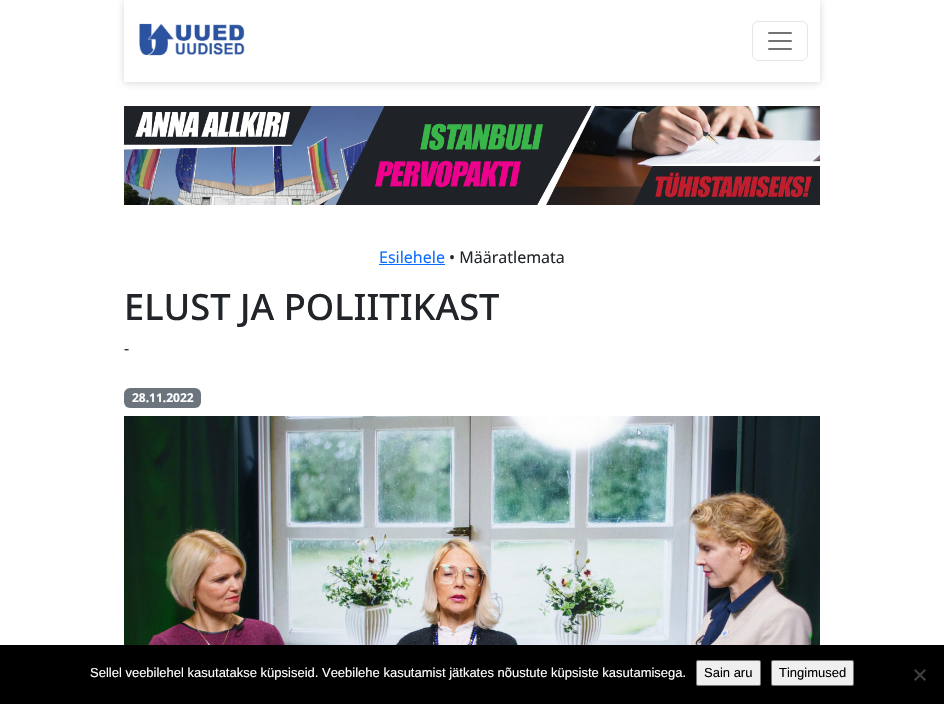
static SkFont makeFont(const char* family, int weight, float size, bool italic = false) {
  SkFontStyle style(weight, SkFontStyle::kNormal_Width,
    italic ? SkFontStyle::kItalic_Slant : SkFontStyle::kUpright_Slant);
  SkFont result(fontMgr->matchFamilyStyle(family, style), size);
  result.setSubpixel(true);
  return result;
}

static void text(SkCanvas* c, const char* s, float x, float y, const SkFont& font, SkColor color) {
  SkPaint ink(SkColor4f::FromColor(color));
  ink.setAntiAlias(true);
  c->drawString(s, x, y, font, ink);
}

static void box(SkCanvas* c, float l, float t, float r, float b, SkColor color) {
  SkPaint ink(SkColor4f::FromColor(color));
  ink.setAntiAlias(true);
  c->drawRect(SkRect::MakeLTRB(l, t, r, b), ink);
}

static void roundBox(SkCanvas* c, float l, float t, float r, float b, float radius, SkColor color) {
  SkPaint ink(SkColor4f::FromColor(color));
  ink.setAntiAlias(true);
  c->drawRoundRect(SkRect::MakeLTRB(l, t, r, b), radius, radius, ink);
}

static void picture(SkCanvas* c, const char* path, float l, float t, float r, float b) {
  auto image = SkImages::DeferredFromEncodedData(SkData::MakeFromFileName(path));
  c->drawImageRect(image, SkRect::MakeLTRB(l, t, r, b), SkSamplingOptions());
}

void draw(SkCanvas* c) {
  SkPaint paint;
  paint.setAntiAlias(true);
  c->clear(0xffffffff);
  c->save();
  c->clipPath(SkPathBuilder(SkPathFillType::kEvenOdd).moveTo(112, 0).lineTo(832, 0).lineTo(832, 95).lineTo(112, 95).close().moveTo(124, 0).lineTo(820, 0).lineTo(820, 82).lineTo(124, 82).close().detach(), true);
  paint.setColor(0x85b0b0b0);
  paint.setMaskFilter(SkMaskFilter::MakeBlur(kNormal_SkBlurStyle, 3.5f));
  c->drawRect(SkRect::MakeLTRB(124, 1, 820, 83), paint);
  paint.setMaskFilter(nullptr);
  c->restore();
  picture(c, "img_01.png", 139, 23, 245, 56);
  paint.setStyle(SkPaint::kStroke_Style);
  paint.setStrokeWidth(1);
  paint.setColor(0xffe6e6e6);
  c->drawRoundRect(SkRect::MakeLTRB(752.5f, 21.5f, 807.5f, 60.5f), 5.5f, 5.5f, paint);
  picture(c, "img_02.png", 768, 32, 792, 50);
  picture(c, "img_03.png", 124, 106, 820, 205);
  SkFont face1 = makeFont("Noto Sans", 400, 16);
  text(c, "Esilehele", 379, 263, face1, 0xff0d6efd);
  box(c, 379, 264, 445, 265, 0xff0d6efd);
  text(c, "• Määratlemata", 449, 263, face1, 0xff212529);
  SkFont face2 = makeFont("Noto Sans", 500, 36.25f);
  text(c, "ELUST JA POLIITIKAST", 124, 320, face2, 0xff212529);
  text(c, "-", 124, 354, face1, 0xff212529);
  roundBox(c, 124, 388, 201, 408, 6, 0xff6c757d);
  SkFont face3 = makeFont("Noto Sans", 700, 12);
  text(c, "28.11.2022", 132, 402, face3, 0xffffffff);
  picture(c, "img_04.png", 124, 416, 820, 645);
  box(c, 0, 645, 944, 704, 0xff000000);
  SkFont face4 = makeFont("Liberation Sans", 400, 13);
  text(c, "Sellel veebilehel kasutatakse küpsiseid. Veebilehe kasutamist jätkates nõustute küpsiste kasutamisega.", 90, 677, face4, 0xffffffff);
  paint.setStyle(SkPaint::kFill_Style);
  paint.setColor(0xffefefef);
  c->drawRoundRect(SkRect::MakeLTRB(696.5f, 660.5f, 760.5f, 685.5f), 1.5f, 1.5f, paint);
  paint.setStyle(SkPaint::kStroke_Style);
  paint.setColor(0xff767676);
  c->drawRoundRect(SkRect::MakeLTRB(696.5f, 660.5f, 760.5f, 685.5f), 1.5f, 1.5f, paint);
  text(c, "Sain aru", 704, 677, face4, 0xff000000);
  paint.setStyle(SkPaint::kFill_Style);
  paint.setColor(0xffefefef);
  c->drawRoundRect(SkRect::MakeLTRB(771.5f, 660.5f, 853.5f, 685.5f), 1.5f, 1.5f, paint);
  paint.setStyle(SkPaint::kStroke_Style);
  paint.setColor(0xff767676);
  c->drawRoundRect(SkRect::MakeLTRB(771.5f, 660.5f, 853.5f, 685.5f), 1.5f, 1.5f, paint);
  text(c, "Tingimused", 779, 677, face4, 0xff000000);
  paint.setStyle(SkPaint::kFill_Style);
  paint.setColor(0xff404040);
  c->drawPath(SkPathBuilder().moveTo(924.5f, 669).lineTo(926, 670.5f).lineTo(915.5f, 681).lineTo(914, 679.5f).close().detach(), paint);
  c->drawPath(SkPathBuilder().moveTo(914, 670.5f).lineTo(915.5f, 669).lineTo(926, 679.5f).lineTo(924.5f, 681).close().detach(), paint);
}
